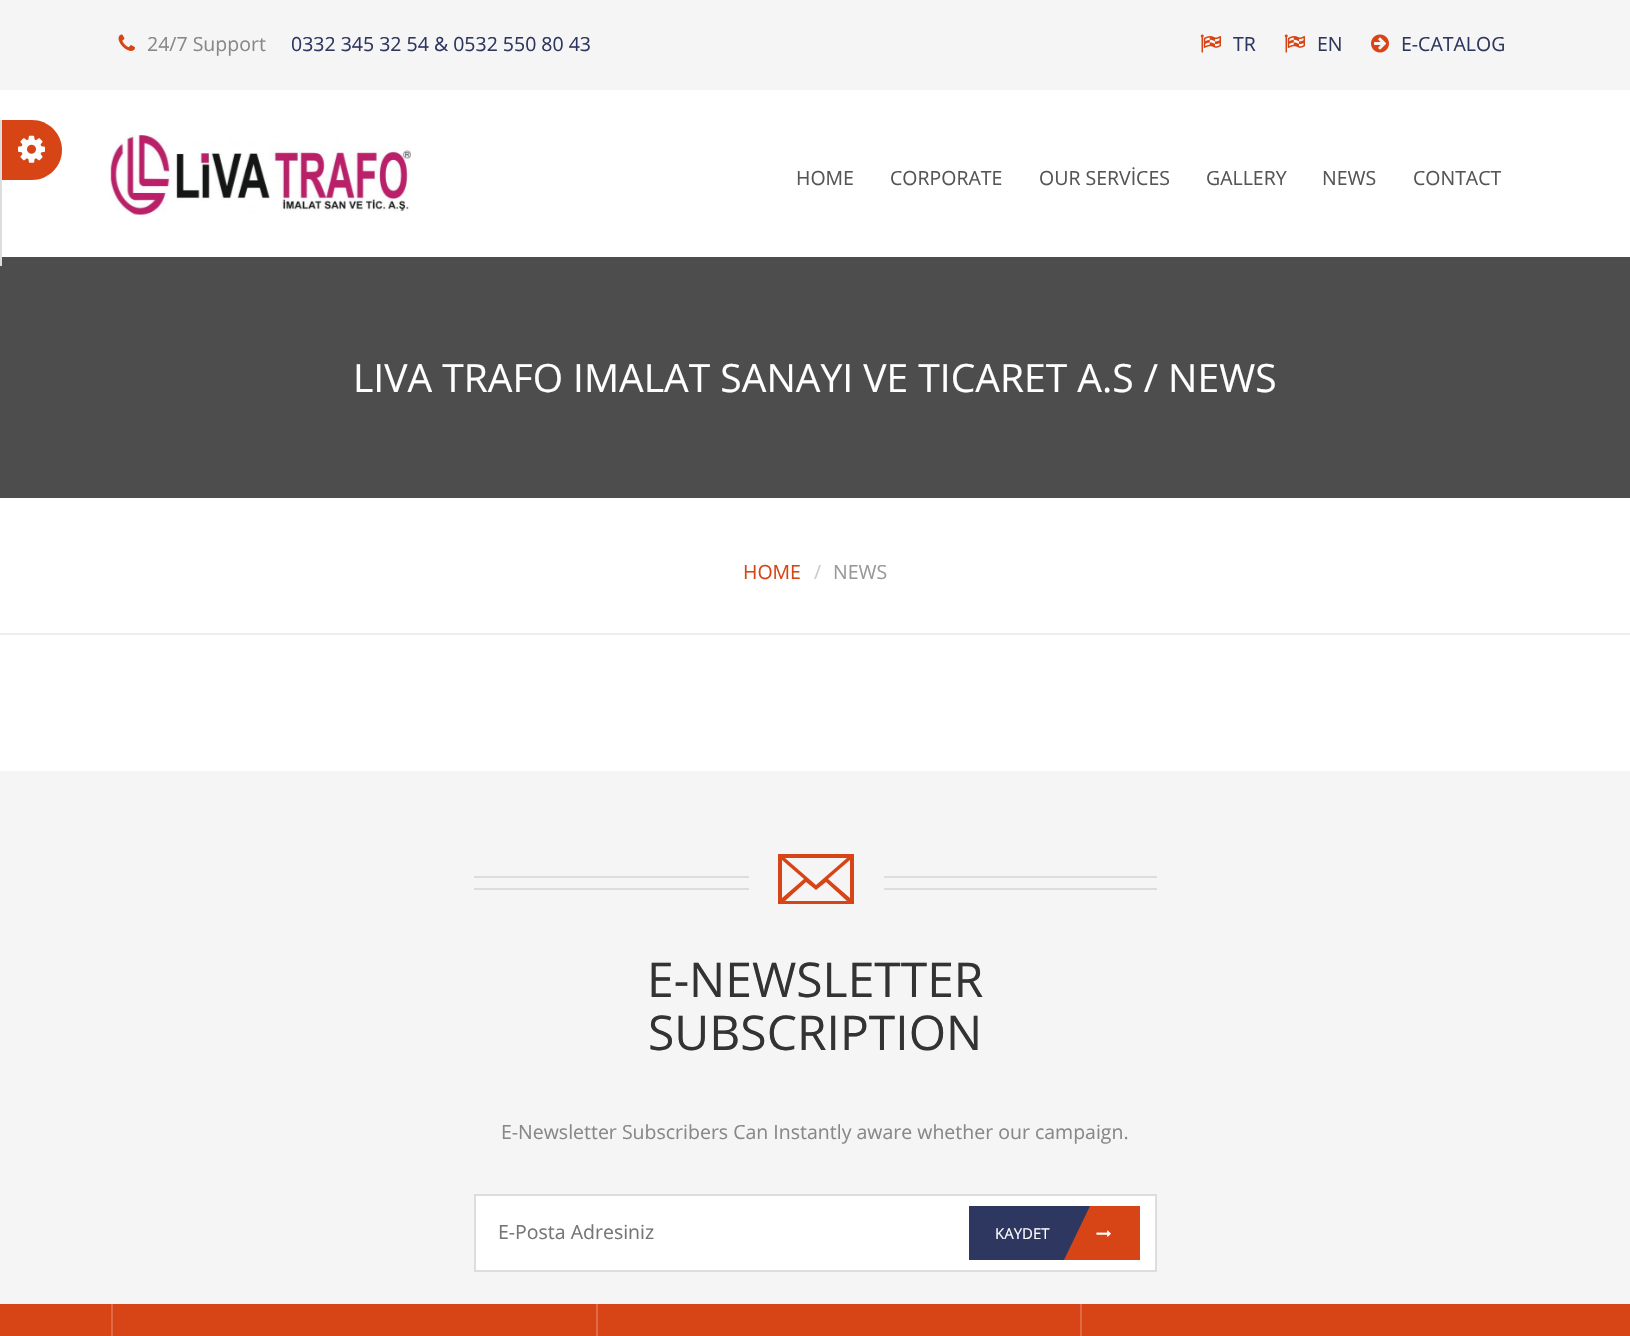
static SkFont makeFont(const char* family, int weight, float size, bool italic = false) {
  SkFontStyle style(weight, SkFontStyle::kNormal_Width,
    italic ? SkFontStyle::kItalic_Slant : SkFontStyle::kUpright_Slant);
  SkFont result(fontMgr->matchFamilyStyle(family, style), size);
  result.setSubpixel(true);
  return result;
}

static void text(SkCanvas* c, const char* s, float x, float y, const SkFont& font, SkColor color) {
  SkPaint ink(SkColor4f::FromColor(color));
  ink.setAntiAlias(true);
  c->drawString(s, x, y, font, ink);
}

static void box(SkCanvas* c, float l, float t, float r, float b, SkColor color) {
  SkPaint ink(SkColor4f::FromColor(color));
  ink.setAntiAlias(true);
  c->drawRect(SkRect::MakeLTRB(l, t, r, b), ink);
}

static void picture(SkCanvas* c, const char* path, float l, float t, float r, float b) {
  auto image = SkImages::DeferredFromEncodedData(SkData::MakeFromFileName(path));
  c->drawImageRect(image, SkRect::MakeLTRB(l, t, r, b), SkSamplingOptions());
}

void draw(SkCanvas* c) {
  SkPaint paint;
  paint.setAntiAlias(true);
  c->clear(0xffffffff);
  box(c, 0, 0, 1630, 90, 0xfff5f5f5);
  picture(c, "img_01.png", 118, 34, 135, 51);
  SkFont face1 = makeFont("Open Sans", 400, 19.5f);
  text(c, "24/7 Support", 147, 51, face1, 0xff888888);
  text(c, "0332 345 32 54 & 0532 550 80 43", 291, 51, face1, 0xff2e375f);
  picture(c, "img_02.png", 1200, 34, 1221, 53);
  text(c, "TR", 1233, 51, face1, 0xff2e375f);
  picture(c, "img_02.png", 1284, 34, 1305, 53);
  text(c, "EN", 1317, 51, face1, 0xff2e375f);
  picture(c, "img_03.png", 1371, 34, 1389, 53);
  text(c, "E-CATALOG", 1401, 51, face1, 0xff2e375f);
  box(c, 0, 257, 1630, 498, 0xff4d4d4d);
  paint.setStyle(SkPaint::kStroke_Style);
  paint.setStrokeWidth(2);
  paint.setColor(0xffdddddd);
  c->drawRect(SkRect::MakeLTRB(-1, 121, 1, 265), paint);
  paint.setStyle(SkPaint::kFill_Style);
  paint.setColor(0xffd74516);
  c->drawPath(SkPathBuilder().moveTo(2, 120).lineTo(32, 120).cubicTo(48.5f, 120, 62, 133.5f, 62, 150).cubicTo(62, 166.5f, 48.5f, 180, 32, 180).lineTo(2, 180).close().detach(), paint);
  picture(c, "img_04.png", 18, 135, 45, 163);
  picture(c, "img_05.png", 110, 135, 411, 215);
  text(c, "HOME", 796, 185, face1, 0xff555555);
  text(c, "CORPORATE", 890, 185, face1, 0xff555555);
  text(c, "OUR SERVİCES", 1039, 185, face1, 0xff555555);
  text(c, "GALLERY", 1206, 185, face1, 0xff555555);
  text(c, "NEWS", 1322, 185, face1, 0xff555555);
  text(c, "CONTACT", 1413, 185, face1, 0xff555555);
  SkFont face2 = makeFont("Open Sans", 400, 39);
  text(c, "LIVA TRAFO IMALAT SANAYI VE TICARET A.S / NEWS", 353, 392, face2, 0xffffffff);
  box(c, 0, 633, 1630, 635, 0xffeeeeee);
  text(c, "HOME", 743, 579, face1, 0xffd74516);
  text(c, "/", 814, 579, face1, 0xffcccccc);
  text(c, "NEWS", 833, 579, face1, 0xff999999);
  box(c, 0, 771, 1630, 1304, 0xfff5f5f5);
  box(c, 474, 876, 1157, 878, 0xffdddddd);
  box(c, 474, 888, 1157, 890, 0xffdddddd);
  box(c, 749, 876, 884, 890, 0xfff5f5f5);
  c->drawPath(SkPathBuilder().moveTo(778, 854).lineTo(778, 904).lineTo(854, 904).lineTo(854, 854).close().moveTo(816, 885).lineTo(785, 858).lineTo(847, 858).close().moveTo(804, 879).lineTo(782, 898).lineTo(782, 860).close().moveTo(806, 882).lineTo(816, 890).lineTo(826, 882).lineTo(847, 901).lineTo(785, 901).close().moveTo(828, 879).lineTo(850, 860).lineTo(850, 898).close().detach(), paint);
  SkFont face3 = makeFont("Open Sans", 400, 48);
  text(c, "E-NEWSLETTER", 647, 997, face3, 0xff333333);
  text(c, "SUBSCRIPTION", 648, 1050, face3, 0xff333333);
  text(c, "E-Newsletter Subscribers Can Instantly aware whether our campaign.", 501, 1139, face1, 0xff888888);
  paint.setColor(0xffffffff);
  c->drawRect(SkRect::MakeLTRB(475, 1195, 1156, 1271), paint);
  paint.setStyle(SkPaint::kStroke_Style);
  paint.setColor(0xffdddddd);
  c->drawRect(SkRect::MakeLTRB(475, 1195, 1156, 1271), paint);
  text(c, "E-Posta Adresiniz", 498, 1239, face1, 0xff757575);
  box(c, 969, 1206, 1090, 1260, 0xff2e375f);
  SkFont face4 = makeFont("Open Sans", 400, 15);
  text(c, "KAYDET", 995, 1239, face4, 0xffffffff);
  c->save();
  c->clipRect(SkRect::MakeLTRB(969, 1206, 1140, 1260));
  paint.setStyle(SkPaint::kFill_Style);
  paint.setColor(0xffd74516);
  c->drawPath(SkPathBuilder().moveTo(1090, 1206).lineTo(1168, 1206).lineTo(1142, 1260).lineTo(1064, 1260).close().detach(), paint);
  c->restore();
  picture(c, "img_06.png", 1096, 1230, 1111, 1237);
  box(c, 0, 1304, 1630, 1336, 0xffd74516);
  box(c, 111, 1304, 113, 1336, 0xffdf6a45);
  box(c, 596, 1304, 598, 1336, 0xffdf6a45);
  box(c, 1080, 1304, 1082, 1336, 0xffdf6a45);
}
